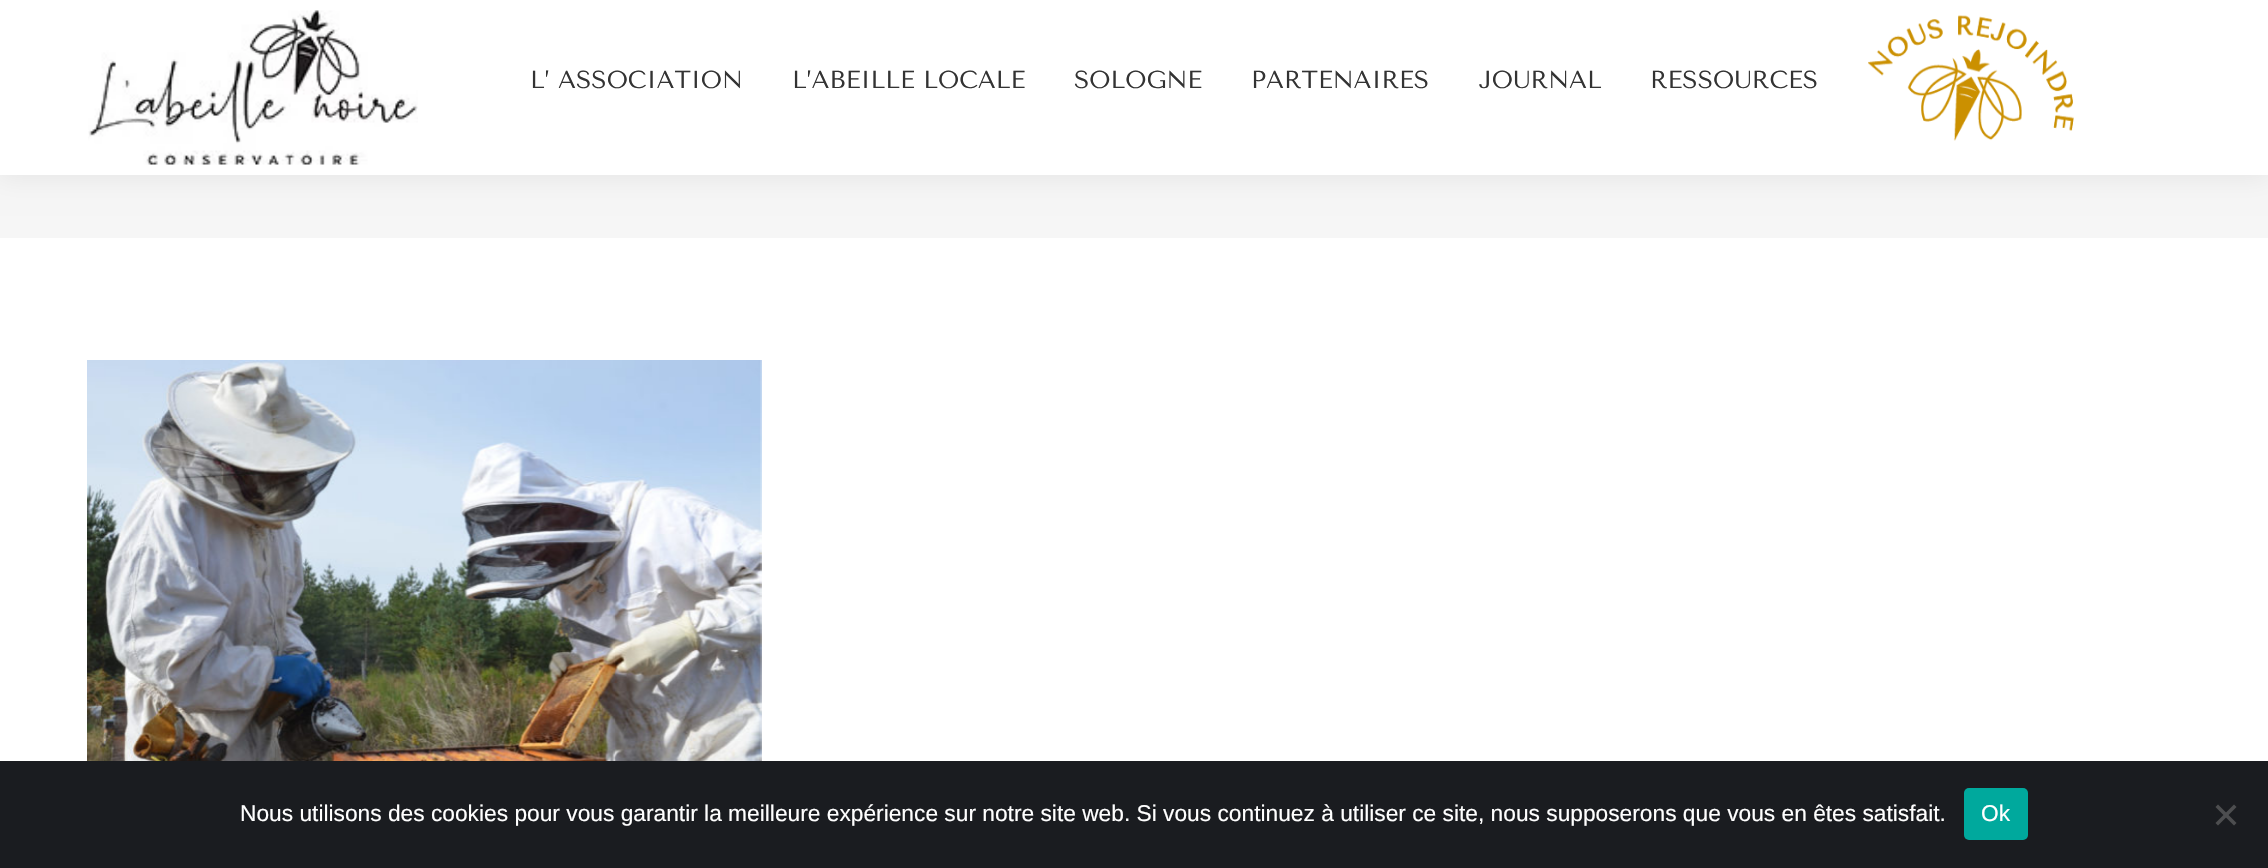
static SkFont makeFont(const char* family, int weight, float size, bool italic = false) {
  SkFontStyle style(weight, SkFontStyle::kNormal_Width,
    italic ? SkFontStyle::kItalic_Slant : SkFontStyle::kUpright_Slant);
  SkFont result(fontMgr->matchFamilyStyle(family, style), size);
  result.setSubpixel(true);
  return result;
}

static void text(SkCanvas* c, const char* s, float x, float y, const SkFont& font, SkColor color) {
  SkPaint ink(SkColor4f::FromColor(color));
  ink.setAntiAlias(true);
  c->drawString(s, x, y, font, ink);
}

static void box(SkCanvas* c, float l, float t, float r, float b, SkColor color) {
  SkPaint ink(SkColor4f::FromColor(color));
  ink.setAntiAlias(true);
  c->drawRect(SkRect::MakeLTRB(l, t, r, b), ink);
}

static void roundBox(SkCanvas* c, float l, float t, float r, float b, float radius, SkColor color) {
  SkPaint ink(SkColor4f::FromColor(color));
  ink.setAntiAlias(true);
  c->drawRoundRect(SkRect::MakeLTRB(l, t, r, b), radius, radius, ink);
}

static void picture(SkCanvas* c, const char* path, float l, float t, float r, float b) {
  auto image = SkImages::DeferredFromEncodedData(SkData::MakeFromFileName(path));
  c->drawImageRect(image, SkRect::MakeLTRB(l, t, r, b), SkSamplingOptions());
}

void draw(SkCanvas* c) {
  SkPaint paint;
  paint.setAntiAlias(true);
  c->clear(0xffffffff);
  box(c, 0, 175, 2268, 238, 0xfff6f6f6);
  paint.setColor(0x12000000);
  paint.setMaskFilter(SkMaskFilter::MakeBlur(kNormal_SkBlurStyle, 13));
  c->drawRect(SkRect::MakeLTRB(-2, -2, 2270, 177), paint);
  paint.setMaskFilter(nullptr);
  box(c, 0, 0, 2268, 175, 0xffffffff);
  picture(c, "img_01.png", 88, 10, 418, 165);
  SkFont face1 = makeFont("Tenor Sans", 400, 24.5f);
  text(c, "L’ ASSOCIATION", 530, 88, face1, 0xff333333);
  text(c, "L’ABEILLE LOCALE", 792, 88, face1, 0xff333333);
  text(c, "SOLOGNE", 1074, 88, face1, 0xff333333);
  text(c, "PARTENAIRES", 1251, 88, face1, 0xff333333);
  text(c, "JOURNAL", 1479, 88, face1, 0xff333333);
  text(c, "RESSOURCES", 1650, 88, face1, 0xff333333);
  picture(c, "img_02.png", 1868, 15, 2074, 141);
  picture(c, "img_03.png", 87, 360, 762, 761);
  box(c, 0, 761, 2268, 868, 0xff1a1c20);
  SkFont face2 = makeFont("Liberation Sans", 400, 22.75f);
  text(c, "Nous utilisons des cookies pour vous garantir la meilleure expérience sur notre site web. Si vous continuez à utiliser ce site, nous supposerons que vous en êtes satisfait.", 240, 821, face2, 0xffffffff);
  roundBox(c, 1964, 788, 2028, 840, 5, 0xff00a99d);
  text(c, "Ok", 1981, 821, face2, 0xffffffff);
  paint.setColor(0xff4d4e50);
  c->drawPath(SkPathBuilder().moveTo(2234, 804.5f).lineTo(2236.5f, 807).lineTo(2218, 825.5f).lineTo(2215.5f, 823).close().detach(), paint);
  c->drawPath(SkPathBuilder().moveTo(2215.5f, 807).lineTo(2218, 804.5f).lineTo(2236.5f, 823).lineTo(2234, 825.5f).close().detach(), paint);
}
